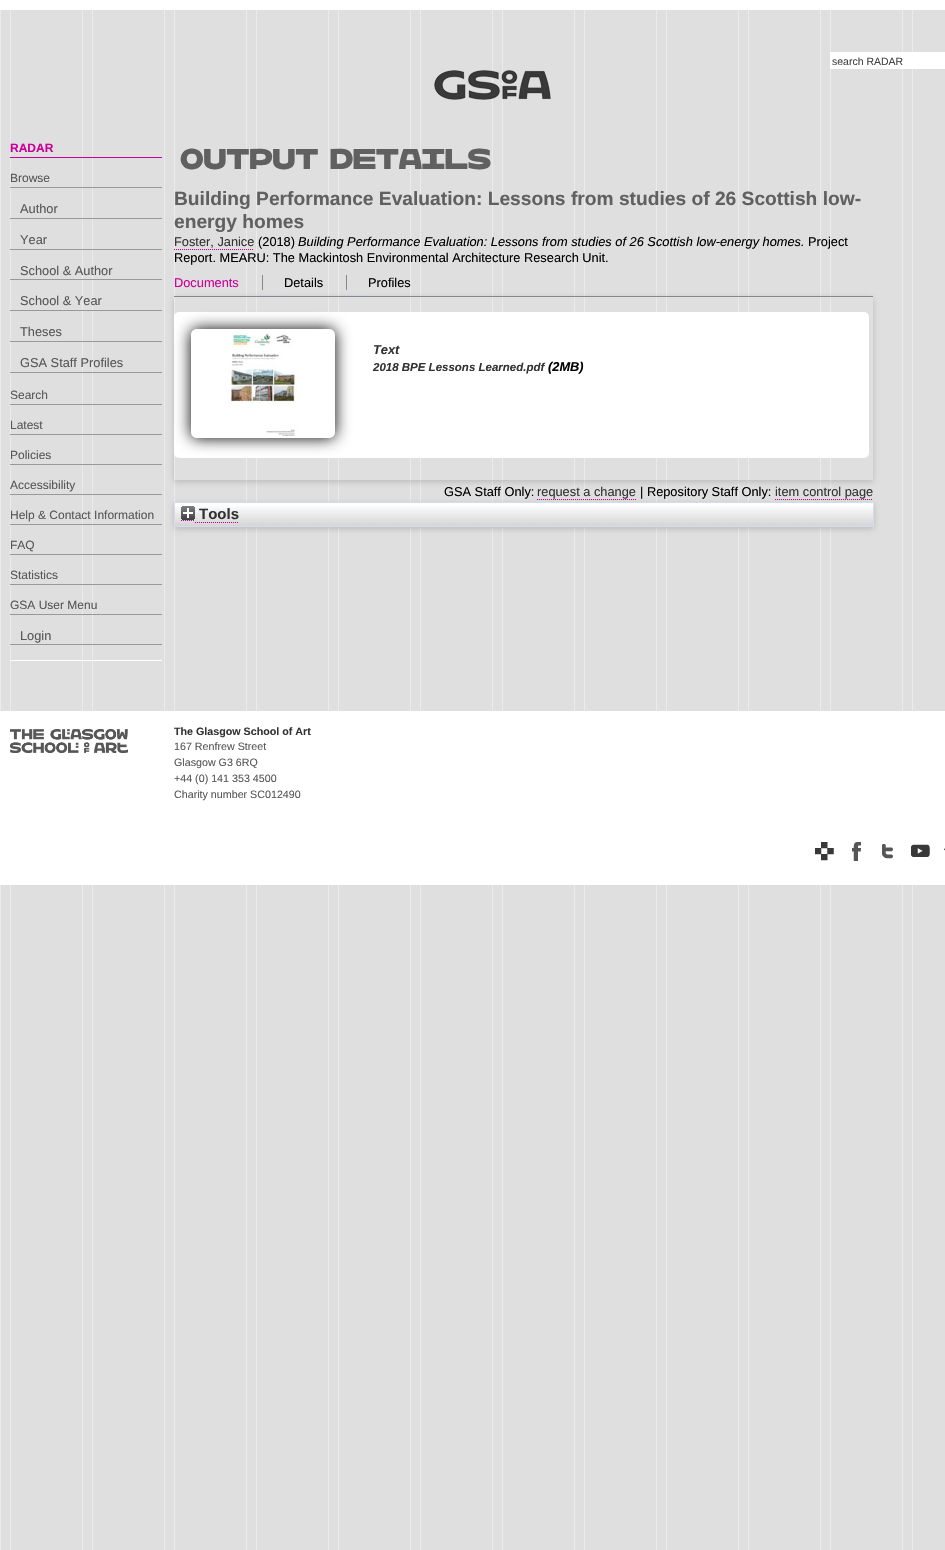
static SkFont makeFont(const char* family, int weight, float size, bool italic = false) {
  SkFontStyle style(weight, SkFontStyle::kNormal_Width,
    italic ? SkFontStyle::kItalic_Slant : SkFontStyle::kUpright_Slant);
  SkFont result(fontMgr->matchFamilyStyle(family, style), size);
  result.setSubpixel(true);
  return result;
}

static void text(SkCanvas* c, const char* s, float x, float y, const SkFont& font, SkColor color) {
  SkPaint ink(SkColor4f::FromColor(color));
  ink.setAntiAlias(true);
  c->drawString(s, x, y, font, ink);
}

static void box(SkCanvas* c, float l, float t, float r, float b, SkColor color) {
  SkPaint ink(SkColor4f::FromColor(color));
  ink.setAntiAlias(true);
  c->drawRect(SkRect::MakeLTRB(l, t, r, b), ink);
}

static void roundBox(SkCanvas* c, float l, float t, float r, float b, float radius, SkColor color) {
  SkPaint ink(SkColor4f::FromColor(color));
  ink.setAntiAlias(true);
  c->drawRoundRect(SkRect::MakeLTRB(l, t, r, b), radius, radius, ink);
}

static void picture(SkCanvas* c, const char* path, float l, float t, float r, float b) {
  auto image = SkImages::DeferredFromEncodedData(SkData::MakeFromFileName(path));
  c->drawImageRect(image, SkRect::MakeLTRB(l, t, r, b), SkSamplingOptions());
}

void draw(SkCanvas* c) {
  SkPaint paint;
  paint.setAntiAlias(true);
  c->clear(0xffffffff);
  picture(c, "img_01.png", 0, 10, 945, 1550);
  box(c, 830, 52, 945, 69, 0xffffffff);
  SkFont face1 = makeFont("Liberation Sans", 400, 10.5f);
  text(c, "search RADAR", 832, 65, face1, 0xff444444);
  picture(c, "img_02.png", 434, 70, 551, 100);
  box(c, 10, 660, 162, 661, 0xffffffff);
  box(c, 10, 157, 162, 158, 0xffcc0099);
  SkFont face2 = makeFont("Liberation Sans", 700, 12);
  text(c, "RADAR", 10, 152, face2, 0xffcc0099);
  box(c, 10, 187, 162, 188, 0xff999999);
  SkFont face3 = makeFont("Liberation Sans", 400, 12);
  text(c, "Browse", 10, 182, face3, 0xff575757);
  box(c, 10, 218, 162, 219, 0xff999999);
  SkFont face4 = makeFont("Liberation Sans", 400, 12.8f);
  text(c, "Author", 20, 213, face4, 0xff575757);
  box(c, 10, 249, 162, 250, 0xff999999);
  text(c, "Year", 20, 244, face4, 0xff575757);
  box(c, 10, 279, 162, 280, 0xff999999);
  text(c, "School & Author", 20, 275, face4, 0xff575757);
  box(c, 10, 310, 162, 311, 0xff999999);
  text(c, "School & Year", 20, 305, face4, 0xff575757);
  box(c, 10, 341, 162, 342, 0xff999999);
  text(c, "Theses", 20, 336, face4, 0xff575757);
  box(c, 10, 372, 162, 373, 0xff999999);
  text(c, "GSA Staff Profiles", 20, 367, face4, 0xff575757);
  box(c, 10, 404, 162, 405, 0xff999999);
  text(c, "Search", 10, 399, face3, 0xff575757);
  box(c, 10, 434, 162, 435, 0xff999999);
  text(c, "Latest", 10, 429, face3, 0xff575757);
  box(c, 10, 464, 162, 465, 0xff999999);
  text(c, "Policies", 10, 459, face3, 0xff575757);
  box(c, 10, 494, 162, 495, 0xff999999);
  text(c, "Accessibility", 10, 489, face3, 0xff575757);
  box(c, 10, 524, 162, 525, 0xff999999);
  text(c, "Help & Contact Information", 10, 519, face3, 0xff575757);
  box(c, 10, 554, 162, 555, 0xff999999);
  text(c, "FAQ", 10, 549, face3, 0xff575757);
  box(c, 10, 584, 162, 585, 0xff999999);
  text(c, "Statistics", 10, 579, face3, 0xff575757);
  box(c, 10, 614, 162, 615, 0xff999999);
  text(c, "GSA User Menu", 10, 609, face3, 0xff575757);
  box(c, 10, 644, 162, 645, 0xff999999);
  text(c, "Login", 20, 640, face4, 0xff575757);
  SkFont face5 = makeFont("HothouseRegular", 700, 23);
  text(c, "OUTPUT DETAILS", 180, 169, face5, 0xff606060);
  SkFont face6 = makeFont("Liberation Sans", 700, 19.2f);
  text(c, "Building Performance Evaluation: Lessons from studies of 26 Scottish low-", 174, 205, face6, 0xff606060);
  text(c, "energy homes", 174, 228, face6, 0xff606060);
  text(c, "Foster, Janice", 174, 246, face4, 0xff333333);
  paint.setStyle(SkPaint::kStroke_Style);
  paint.setStrokeWidth(1);
  paint.setColor(0xffcc0099);
  paint.setPathEffect(SkDashPathEffect::Make({{1, 1}}, 0));
  c->drawPath(SkPathBuilder().moveTo(174, 249.5f).lineTo(254, 249.5f).detach(), paint);
  paint.setPathEffect(nullptr);
  text(c, "(2018)", 258, 246, face4, 0xff000000);
  SkFont face7 = makeFont("Liberation Sans", 400, 12.8f, true);
  text(c, "Building Performance Evaluation: Lessons from studies of 26 Scottish low-energy homes.", 298, 246, face7, 0xff000000);
  text(c, "Project", 808, 246, face4, 0xff000000);
  text(c, "Report. MEARU: The Mackintosh Environmental Architecture Research Unit.", 174, 262, face4, 0xff000000);
  text(c, "Documents", 174, 287, face4, 0xffcc0099);
  box(c, 258, 295, 284, 296, 0xffd8dbef);
  box(c, 342, 295, 368, 296, 0xffd8dbef);
  c->save();
  c->clipPath(SkPathBuilder(SkPathFillType::kEvenOdd).moveTo(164, 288).lineTo(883, 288).lineTo(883, 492).lineTo(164, 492).close().moveTo(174, 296).lineTo(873, 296).lineTo(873, 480).lineTo(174, 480).close().detach(), true);
  paint.setStyle(SkPaint::kFill_Style);
  paint.setColor(0x4d646464);
  paint.setMaskFilter(SkMaskFilter::MakeBlur(kNormal_SkBlurStyle, 3));
  c->drawRect(SkRect::MakeLTRB(174, 298, 873, 482), paint);
  paint.setMaskFilter(nullptr);
  c->restore();
  box(c, 262, 275, 263, 290, 0xff878787);
  text(c, "Details", 284, 287, face4, 0xff000000);
  box(c, 346, 275, 347, 290, 0xff878787);
  text(c, "Profiles", 368, 287, face4, 0xff000000);
  box(c, 174, 296, 873, 297, 0xff878787);
  roundBox(c, 174, 312, 869, 458, 5, 0xffffffff);
  c->save();
  c->clipPath(SkPathBuilder(SkPathFillType::kEvenOdd).moveTo(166, 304).lineTo(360, 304).lineTo(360, 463).lineTo(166, 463).close().moveTo(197, 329).lineTo(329, 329).cubicTo(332.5f, 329, 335, 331.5f, 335, 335).lineTo(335, 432).cubicTo(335, 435.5f, 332.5f, 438, 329, 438).lineTo(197, 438).cubicTo(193.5f, 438, 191, 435.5f, 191, 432).lineTo(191, 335).cubicTo(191, 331.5f, 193.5f, 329, 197, 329).close().detach(), true);
  paint.setColor(0xff000000);
  paint.setMaskFilter(SkMaskFilter::MakeBlur(kNormal_SkBlurStyle, 8));
  c->drawRoundRect(SkRect::MakeLTRB(191, 329, 335, 438), 6, 6, paint);
  paint.setMaskFilter(nullptr);
  c->restore();
  picture(c, "img_03.png", 228, 331, 298, 436);
  SkFont face8 = makeFont("Liberation Sans", 700, 12.8f, true);
  text(c, "Text", 373, 354, face8, 0xff333333);
  SkFont face9 = makeFont("Liberation Sans", 700, 11.5f, true);
  text(c, "2018 BPE Lessons Learned.pdf", 373, 371, face9, 0xff333333);
  text(c, "(2MB)", 548, 371, face8, 0xff000000);
  paint.setColor(0x4d646464);
  paint.setMaskFilter(SkMaskFilter::MakeBlur(kNormal_SkBlurStyle, 3));
  c->drawRect(SkRect::MakeLTRB(174, 504, 874, 529), paint);
  paint.setMaskFilter(nullptr);
  text(c, "GSA Staff Only:", 444, 496, face4, 0xff000000);
  text(c, "request a change", 537, 496, face4, 0xff333333);
  paint.setStyle(SkPaint::kStroke_Style);
  paint.setColor(0xffcc0099);
  paint.setPathEffect(SkDashPathEffect::Make({{1, 1}}, 0));
  c->drawPath(SkPathBuilder().moveTo(537, 499.5f).lineTo(636, 499.5f).detach(), paint);
  paint.setPathEffect(nullptr);
  text(c, "| Repository Staff Only:", 640, 496, face4, 0xff000000);
  text(c, "item control page", 775, 496, face4, 0xff333333);
  paint.setPathEffect(SkDashPathEffect::Make({{1, 1}}, 0));
  c->drawPath(SkPathBuilder().moveTo(775, 499.5f).lineTo(873, 499.5f).detach(), paint);
  paint.setPathEffect(nullptr);
  box(c, 175, 503, 873, 506, 0xffffffff);
  picture(c, "img_04.png", 175, 506, 873, 526);
  paint.setColor(0xffd8dbef);
  c->drawRect(SkRect::MakeLTRB(174.5f, 502.5f, 873.5f, 526.5f), paint);
  picture(c, "img_05.png", 181, 506, 195, 520);
  SkFont face10 = makeFont("Liberation Sans", 700, 15);
  text(c, "Tools", 199, 519, face10, 0xff333333);
  paint.setColor(0xffcc0099);
  paint.setPathEffect(SkDashPathEffect::Make({{1, 1}}, 0));
  c->drawPath(SkPathBuilder().moveTo(181, 520.5f).lineTo(195, 520.5f).moveTo(195, 522.5f).lineTo(238, 522.5f).detach(), paint);
  paint.setPathEffect(nullptr);
  box(c, 0, 711, 945, 885, 0xffffffff);
  picture(c, "img_06.png", 10, 729, 128, 753);
  SkFont face11 = makeFont("Liberation Sans", 700, 10.7f);
  text(c, "The Glasgow School of Art", 174, 735, face11, 0xff333333);
  SkFont face12 = makeFont("Liberation Sans", 400, 10.7f);
  text(c, "167 Renfrew Street", 174, 750, face12, 0xff575757);
  text(c, "Glasgow G3 6RQ", 174, 766, face12, 0xff575757);
  text(c, "+44 (0) 141 353 4500", 174, 782, face12, 0xff575757);
  text(c, "Charity number SC012490", 174, 798, face12, 0xff575757);
  picture(c, "img_07.png", 815, 842, 834, 861);
  picture(c, "img_08.png", 852, 842, 861, 861);
  picture(c, "img_09.png", 882, 844, 893, 859);
  picture(c, "img_10.png", 911, 844, 930, 857);
  picture(c, "img_11.png", 944, 848, 945, 851);
}
